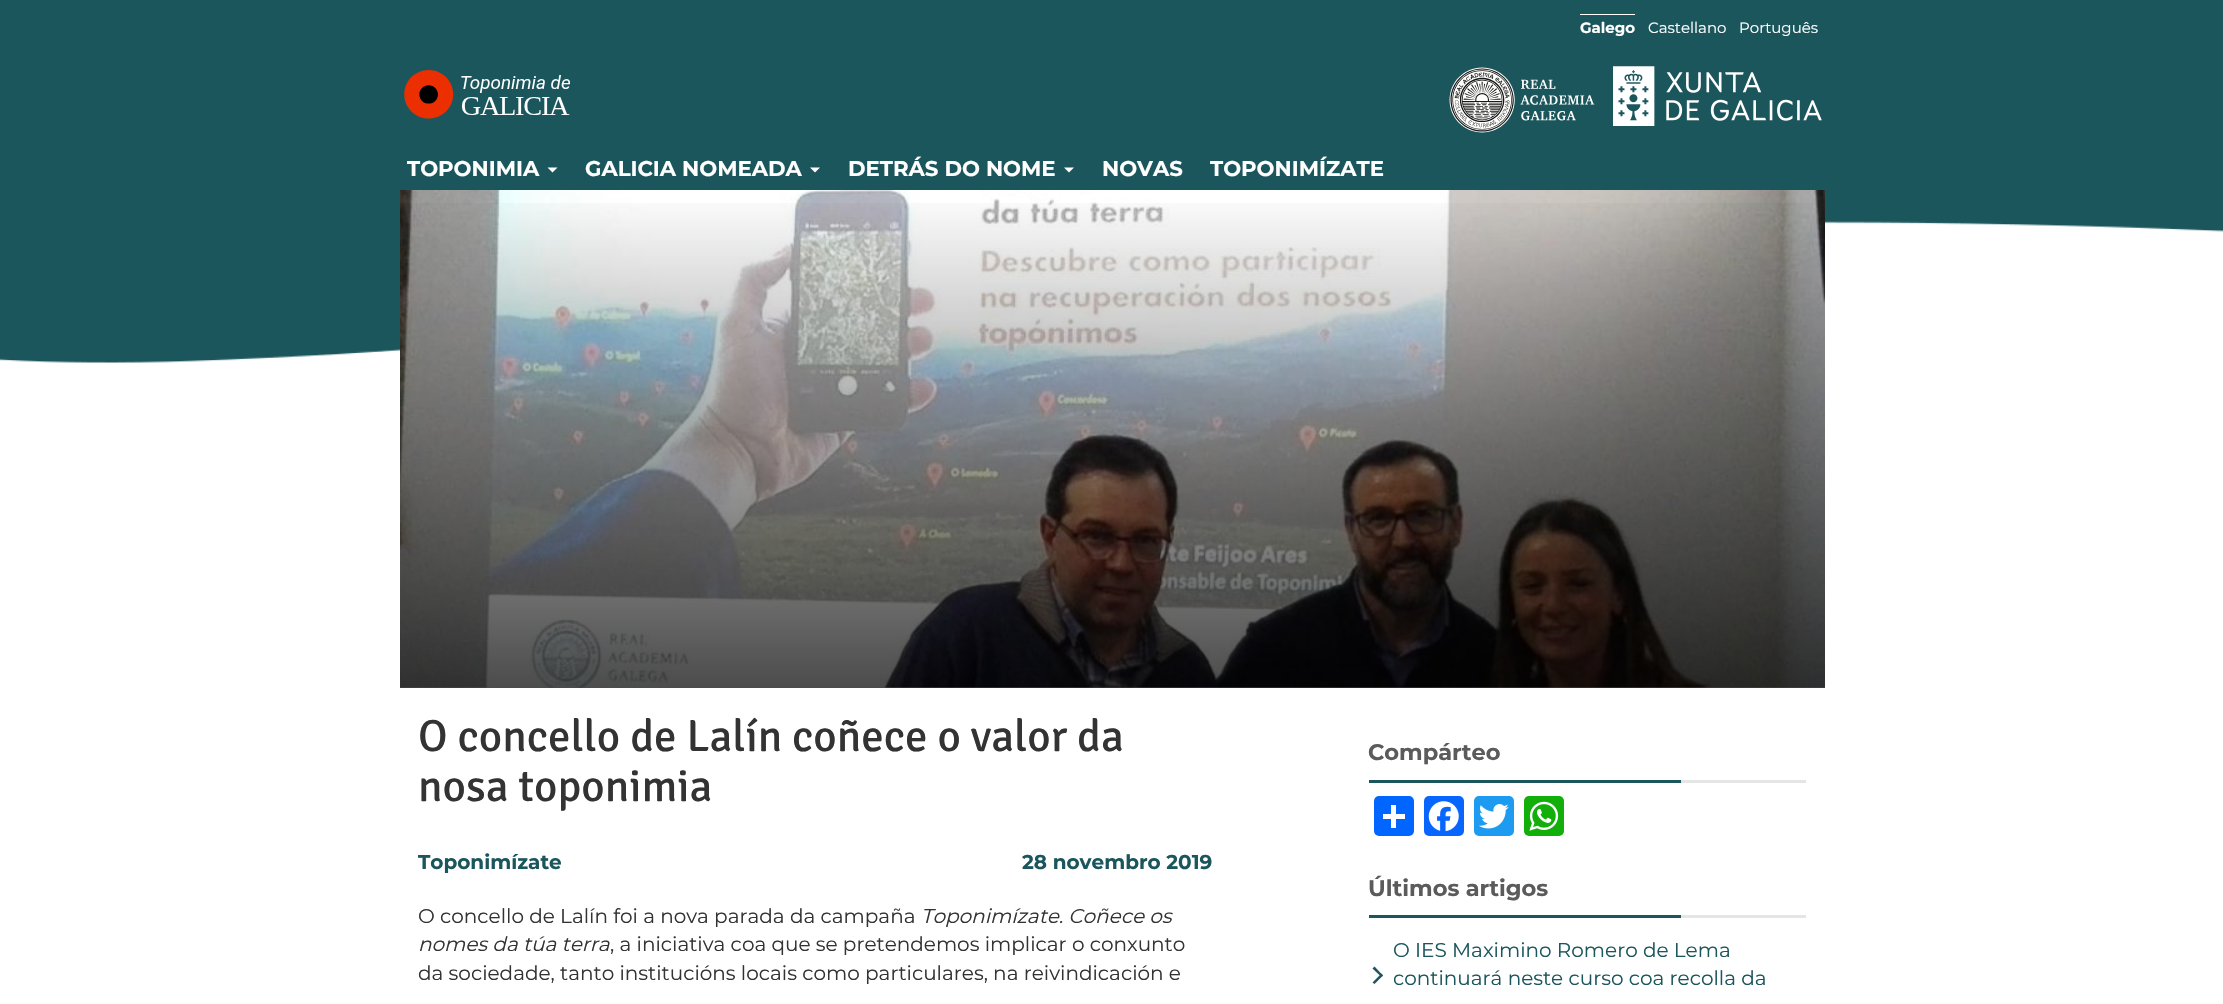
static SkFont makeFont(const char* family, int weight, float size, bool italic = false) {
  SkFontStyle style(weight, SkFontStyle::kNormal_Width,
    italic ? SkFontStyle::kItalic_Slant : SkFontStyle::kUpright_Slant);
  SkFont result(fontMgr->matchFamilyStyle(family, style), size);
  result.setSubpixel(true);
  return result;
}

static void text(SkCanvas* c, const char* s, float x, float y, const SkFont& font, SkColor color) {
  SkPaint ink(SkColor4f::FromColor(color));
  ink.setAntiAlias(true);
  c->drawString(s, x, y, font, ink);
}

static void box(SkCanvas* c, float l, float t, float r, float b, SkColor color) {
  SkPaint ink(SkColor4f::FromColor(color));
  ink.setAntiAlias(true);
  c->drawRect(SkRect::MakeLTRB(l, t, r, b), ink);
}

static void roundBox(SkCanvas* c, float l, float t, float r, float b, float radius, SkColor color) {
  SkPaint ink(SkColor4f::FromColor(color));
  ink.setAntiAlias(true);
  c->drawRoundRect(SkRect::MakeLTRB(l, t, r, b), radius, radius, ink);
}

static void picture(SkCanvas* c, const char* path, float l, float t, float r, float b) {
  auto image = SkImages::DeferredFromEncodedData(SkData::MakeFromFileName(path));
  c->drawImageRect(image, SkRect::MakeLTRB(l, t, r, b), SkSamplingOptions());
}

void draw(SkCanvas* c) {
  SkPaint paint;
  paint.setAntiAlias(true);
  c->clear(0xffffffff);
  picture(c, "img_01.png", 0, 190, 2223, 363);
  box(c, 0, 0, 2223, 190, 0xff1b565d);
  SkFont face1 = makeFont("Montserrat", 700, 15);
  text(c, "Galego", 1580, 33, face1, 0xffffffff);
  box(c, 1580, 14, 1635, 15, 0xffffffff);
  SkFont face2 = makeFont("Montserrat", 400, 15);
  text(c, "Castellano", 1648, 33, face2, 0xffffffff);
  text(c, "Português", 1739, 33, face2, 0xffffffff);
  picture(c, "img_02.png", 404, 70, 570, 119);
  picture(c, "img_03.png", 1449, 67, 1595, 133);
  picture(c, "img_04.png", 1613, 66, 1822, 126);
  SkFont face3 = makeFont("Montserrat", 700, 21.25f);
  text(c, "TOPONIMIA", 407, 176, face3, 0xffffffff);
  paint.setColor(0xffffffff);
  c->drawPath(SkPathBuilder().moveTo(547.5f, 167.5f).lineTo(557.5f, 167.5f).lineTo(552.5f, 172.5f).close().detach(), paint);
  text(c, "GALICIA NOMEADA", 585, 176, face3, 0xffffffff);
  c->drawPath(SkPathBuilder().moveTo(810, 167.5f).lineTo(820, 167.5f).lineTo(815, 172.5f).close().detach(), paint);
  text(c, "DETRÁS DO NOME", 848, 176, face3, 0xffffffff);
  c->drawPath(SkPathBuilder().moveTo(1064, 167.5f).lineTo(1074, 167.5f).lineTo(1069, 172.5f).close().detach(), paint);
  text(c, "NOVAS", 1102, 176, face3, 0xffffffff);
  text(c, "TOPONIMÍZATE", 1210, 176, face3, 0xffffffff);
  picture(c, "img_05.png", 400, 190, 1825, 688);
  {
    const SkColor colors[] = {0xb3000000, 0x00000000};
    const float stops[] = {0, 1};
    const SkPoint ends[] = {{1113, 688}, {1113, 188}};
    paint.setShader(SkGradientShader::MakeLinear(ends, colors, stops, 2, SkTileMode::kClamp));
    paint.setAlpha(255);
  }
  c->drawRect(SkRect::MakeLTRB(400, 203, 1825, 688), paint);
  SkFont face4 = makeFont("Signika", 400, 45);
  text(c, "O concello de Lalín coñece o valor da", 418, 751, face4, 0xff333333);
  text(c, "nosa toponimia", 418, 801, face4, 0xff333333);
  SkFont face5 = makeFont("Montserrat", 700, 20);
  text(c, "Toponimízate", 418, 869, face5, 0xff1b565d);
  text(c, "28 novembro 2019", 1022, 869, face5, 0xff1b565d);
  SkFont face6 = makeFont("Montserrat", 400, 20);
  text(c, "O concello de Lalín foi a nova parada da campaña", 418, 923, face6, 0xff333333);
  SkFont face7 = makeFont("Montserrat", 400, 20, true);
  text(c, "Toponimízate. Coñece os", 921, 923, face7, 0xff333333);
  text(c, "nomes da túa terra", 418, 951, face7, 0xff333333);
  text(c, ", a iniciativa coa que se pretendemos implicar o conxunto", 610, 951, face6, 0xff333333);
  text(c, "da sociedade, tanto institucións locais como particulares, na reivindicación e", 418, 980, face6, 0xff333333);
  box(c, 1681, 780, 1806, 783, 0xffe5e5e5);
  SkFont face8 = makeFont("Montserrat", 700, 22.5f);
  text(c, "Compárteo", 1368, 760, face8, 0xff5b5b5b);
  box(c, 1369, 780, 1681, 783, 0xff1b565d);
  roundBox(c, 1374, 796, 1414, 836, 5, 0xff0166ff);
  box(c, 1391, 805, 1396, 828, 0xffffffff);
  box(c, 1383, 814, 1405, 819, 0xffffffff);
  roundBox(c, 1424, 796, 1464, 836, 5, 0xff0866ff);
  picture(c, "img_06.png", 1428, 801, 1459, 832);
  roundBox(c, 1474, 796, 1514, 836, 5, 0xff1d9bf0);
  picture(c, "img_07.png", 1479, 804, 1509, 829);
  roundBox(c, 1524, 796, 1564, 836, 5, 0xff12af0a);
  picture(c, "img_08.png", 1529, 801, 1559, 831);
  box(c, 1681, 915, 1806, 918, 0xffe5e5e5);
  text(c, "Últimos artigos", 1368, 896, face8, 0xff5b5b5b);
  box(c, 1369, 915, 1681, 918, 0xff1b565d);
  text(c, "O IES Maximino Romero de Lema", 1393, 957, face6, 0xff1b565d);
  paint.setShader(nullptr);
  paint.setColor(0xff1b565d);
  c->drawPath(SkPathBuilder().moveTo(1372.5f, 968.5f).lineTo(1374.5f, 966.5f).lineTo(1383, 975.5f).lineTo(1381.5f, 977).close().detach(), paint);
  c->drawPath(SkPathBuilder().moveTo(1372.5f, 982.5f).lineTo(1381.5f, 973.5f).lineTo(1383, 975.5f).lineTo(1374.5f, 984).close().detach(), paint);
  text(c, "continuará neste curso coa recolla da", 1393, 985, face6, 0xff1b565d);
}
